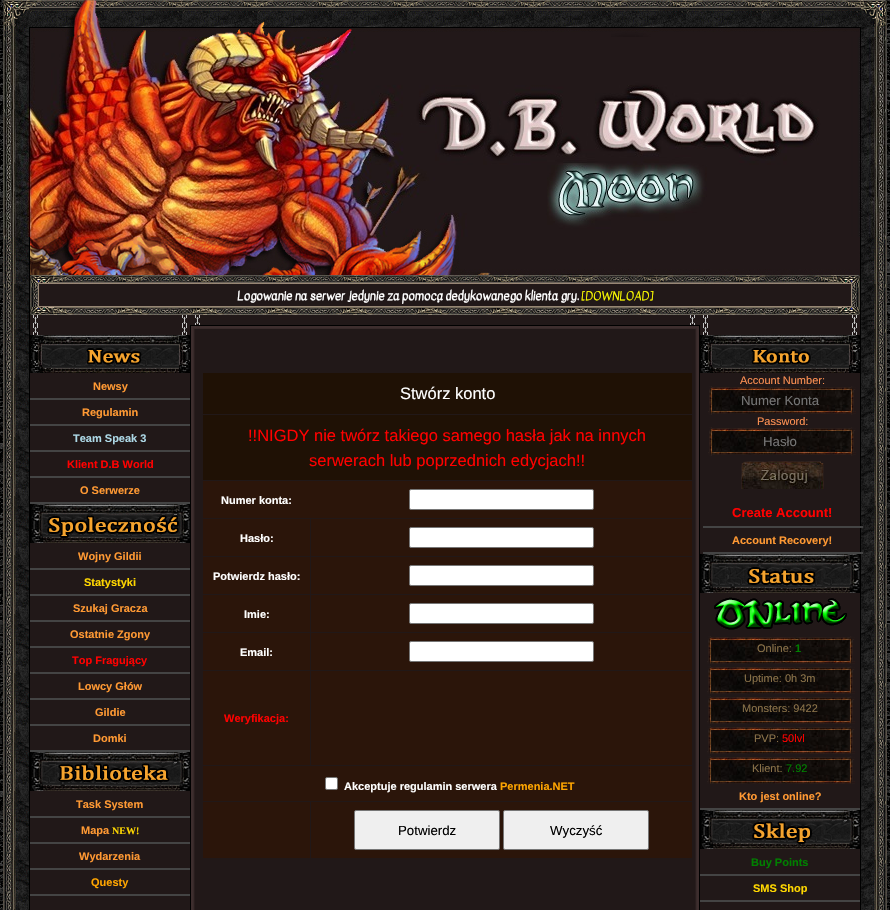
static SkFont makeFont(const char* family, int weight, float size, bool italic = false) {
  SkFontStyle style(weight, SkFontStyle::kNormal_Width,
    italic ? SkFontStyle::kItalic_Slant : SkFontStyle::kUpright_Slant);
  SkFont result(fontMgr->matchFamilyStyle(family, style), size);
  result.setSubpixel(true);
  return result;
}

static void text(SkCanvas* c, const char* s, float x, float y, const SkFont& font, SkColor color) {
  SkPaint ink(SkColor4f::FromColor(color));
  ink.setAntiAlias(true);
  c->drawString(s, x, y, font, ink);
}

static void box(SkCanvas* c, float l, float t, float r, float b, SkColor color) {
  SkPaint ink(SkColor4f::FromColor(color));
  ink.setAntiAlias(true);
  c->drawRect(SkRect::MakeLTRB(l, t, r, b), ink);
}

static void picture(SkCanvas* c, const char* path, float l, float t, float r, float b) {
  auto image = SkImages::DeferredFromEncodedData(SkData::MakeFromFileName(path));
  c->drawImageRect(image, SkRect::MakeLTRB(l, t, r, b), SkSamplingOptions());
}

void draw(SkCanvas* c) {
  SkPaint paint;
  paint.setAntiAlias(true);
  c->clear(0xffffffff);
  picture(c, "img_01.png", 0, 0, 890, 910);
  picture(c, "img_02.png", 3, 0, 887, 37);
  picture(c, "img_03.png", 3, 37, 887, 237);
  picture(c, "img_04.png", 3, 237, 887, 284);
  picture(c, "img_05.png", 3, 284, 887, 329);
  SkFont face1 = makeFont("Kavivanar", 700, 12);
  text(c, "Logowanie na serwer jedynie za pomocą dedykowanego klienta gry.", 237, 300, face1, 0xffffffff);
  SkFont face2 = makeFont("Kavivanar", 400, 12);
  text(c, "[DOWNLOAD]", 581, 300, face2, 0xffffff00);
  picture(c, "img_06.png", 3, 329, 887, 910);
  picture(c, "img_07.png", 30, 329, 190, 373);
  box(c, 30, 398, 190, 400, 0xff444444);
  SkFont face3 = makeFont("Liberation Sans", 700, 11);
  text(c, "Newsy", 93, 390, face3, 0xffff9933);
  box(c, 30, 424, 190, 426, 0xff444444);
  text(c, "Regulamin", 82, 416, face3, 0xffff9933);
  box(c, 30, 450, 190, 452, 0xff444444);
  text(c, "Team Speak 3", 73, 442, face3, 0xffadd8e6);
  box(c, 30, 476, 190, 478, 0xff444444);
  text(c, "Klient D.B World", 67, 468, face3, 0xffff0000);
  box(c, 30, 502, 190, 504, 0xff444444);
  text(c, "O Serwerze", 80, 494, face3, 0xffff9933);
  picture(c, "img_08.png", 30, 504, 190, 543);
  box(c, 30, 568, 190, 570, 0xff444444);
  text(c, "Wojny Gildii", 78, 560, face3, 0xffff9933);
  box(c, 30, 594, 190, 596, 0xff444444);
  text(c, "Statystyki", 84, 586, face3, 0xffffd700);
  box(c, 30, 620, 190, 622, 0xff444444);
  text(c, "Szukaj Gracza", 73, 612, face3, 0xffff9933);
  box(c, 30, 646, 190, 648, 0xff444444);
  text(c, "Ostatnie Zgony", 70, 638, face3, 0xffff9933);
  box(c, 30, 672, 190, 674, 0xff444444);
  text(c, "Top Fragujący", 72, 664, face3, 0xffff0000);
  box(c, 30, 698, 190, 700, 0xff444444);
  text(c, "Lowcy Głów", 78, 690, face3, 0xffff9933);
  box(c, 30, 724, 190, 726, 0xff444444);
  text(c, "Gildie", 95, 716, face3, 0xffff9933);
  box(c, 30, 750, 190, 752, 0xff444444);
  text(c, "Domki", 93, 742, face3, 0xffff9933);
  picture(c, "img_09.png", 30, 752, 190, 791);
  box(c, 30, 816, 190, 818, 0xff444444);
  text(c, "Task System", 76, 808, face3, 0xffff9933);
  box(c, 30, 842, 190, 844, 0xff444444);
  text(c, "Mapa", 81, 834, face3, 0xffff9933);
  SkFont face4 = makeFont("Liberation Serif", 700, 10);
  text(c, "NEW!", 112, 834, face4, 0xffffd700);
  box(c, 30, 868, 190, 870, 0xff444444);
  text(c, "Wydarzenia", 79, 860, face3, 0xffff9933);
  box(c, 30, 894, 190, 896, 0xff444444);
  text(c, "Questy", 91, 886, face3, 0xffffa500);
  box(c, 203, 373, 692, 414, 0xff1f1105);
  SkFont face5 = makeFont("Liberation Sans", 400, 16.5f);
  text(c, "Stwórz konto", 400, 399, face5, 0xffffffff);
  box(c, 203, 415, 692, 480, 0xff1f1105);
  text(c, "!!NIGDY nie twórz takiego samego hasła jak na innych", 248, 441, face5, 0xffff0000);
  text(c, "serwerach lub poprzednich edycjach!!", 309, 466, face5, 0xffff0000);
  box(c, 203, 481, 692, 518, 0xff2b150a);
  text(c, "Numer konta:", 221, 504, face3, 0xffffffff);
  paint.setColor(0xffffffff);
  c->drawRoundRect(SkRect::MakeLTRB(409.5f, 489.5f, 593.5f, 509.5f), 1.5f, 1.5f, paint);
  paint.setStyle(SkPaint::kStroke_Style);
  paint.setStrokeWidth(1);
  paint.setColor(0xff767676);
  c->drawRoundRect(SkRect::MakeLTRB(409.5f, 489.5f, 593.5f, 509.5f), 1.5f, 1.5f, paint);
  box(c, 203, 519, 310, 556, 0xff2b150a);
  text(c, "Hasło:", 240, 542, face3, 0xffffffff);
  box(c, 311, 519, 692, 556, 0xff2b150a);
  paint.setStyle(SkPaint::kFill_Style);
  paint.setColor(0xffffffff);
  c->drawRoundRect(SkRect::MakeLTRB(409.5f, 527.5f, 593.5f, 547.5f), 1.5f, 1.5f, paint);
  paint.setStyle(SkPaint::kStroke_Style);
  paint.setColor(0xff767676);
  c->drawRoundRect(SkRect::MakeLTRB(409.5f, 527.5f, 593.5f, 547.5f), 1.5f, 1.5f, paint);
  box(c, 203, 557, 310, 594, 0xff2b150a);
  text(c, "Potwierdz hasło:", 213, 580, face3, 0xffffffff);
  box(c, 311, 557, 692, 594, 0xff2b150a);
  paint.setStyle(SkPaint::kFill_Style);
  paint.setColor(0xffffffff);
  c->drawRoundRect(SkRect::MakeLTRB(409.5f, 565.5f, 593.5f, 585.5f), 1.5f, 1.5f, paint);
  paint.setStyle(SkPaint::kStroke_Style);
  paint.setColor(0xff767676);
  c->drawRoundRect(SkRect::MakeLTRB(409.5f, 565.5f, 593.5f, 585.5f), 1.5f, 1.5f, paint);
  box(c, 203, 595, 310, 632, 0xff2b150a);
  text(c, "Imie:", 244, 618, face3, 0xffffffff);
  box(c, 311, 595, 692, 632, 0xff2b150a);
  paint.setStyle(SkPaint::kFill_Style);
  paint.setColor(0xffffffff);
  c->drawRoundRect(SkRect::MakeLTRB(409.5f, 603.5f, 593.5f, 623.5f), 1.5f, 1.5f, paint);
  paint.setStyle(SkPaint::kStroke_Style);
  paint.setColor(0xff767676);
  c->drawRoundRect(SkRect::MakeLTRB(409.5f, 603.5f, 593.5f, 623.5f), 1.5f, 1.5f, paint);
  box(c, 203, 633, 310, 670, 0xff2b150a);
  text(c, "Email:", 240, 656, face3, 0xffffffff);
  box(c, 311, 633, 692, 670, 0xff2b150a);
  paint.setStyle(SkPaint::kFill_Style);
  paint.setColor(0xffffffff);
  c->drawRoundRect(SkRect::MakeLTRB(409.5f, 641.5f, 593.5f, 661.5f), 1.5f, 1.5f, paint);
  paint.setStyle(SkPaint::kStroke_Style);
  paint.setColor(0xff767676);
  c->drawRoundRect(SkRect::MakeLTRB(409.5f, 641.5f, 593.5f, 661.5f), 1.5f, 1.5f, paint);
  box(c, 203, 671, 310, 765, 0xff2b150a);
  text(c, "Weryfikacja:", 224, 722, face3, 0xffff0000);
  box(c, 311, 671, 692, 765, 0xff2b150a);
  box(c, 203, 766, 692, 801, 0xff2b150a);
  paint.setStyle(SkPaint::kFill_Style);
  paint.setColor(0xffffffff);
  c->drawRoundRect(SkRect::MakeLTRB(325.5f, 777.5f, 337.5f, 789.5f), 1.5f, 1.5f, paint);
  paint.setStyle(SkPaint::kStroke_Style);
  paint.setColor(0xff767676);
  c->drawRoundRect(SkRect::MakeLTRB(325.5f, 777.5f, 337.5f, 789.5f), 1.5f, 1.5f, paint);
  text(c, "Akceptuje regulamin serwera", 344, 790, face3, 0xffffffff);
  text(c, "Permenia.NET", 500, 790, face3, 0xffffa500);
  box(c, 203, 802, 310, 858, 0xff2b150a);
  box(c, 311, 802, 692, 858, 0xff2b150a);
  paint.setStyle(SkPaint::kFill_Style);
  paint.setColor(0xffefefef);
  c->drawRoundRect(SkRect::MakeLTRB(354.5f, 810.5f, 499.5f, 849.5f), 1.5f, 1.5f, paint);
  paint.setStyle(SkPaint::kStroke_Style);
  paint.setColor(0xff767676);
  c->drawRoundRect(SkRect::MakeLTRB(354.5f, 810.5f, 499.5f, 849.5f), 1.5f, 1.5f, paint);
  SkFont face6 = makeFont("Liberation Sans", 400, 13.25f);
  text(c, "Potwierdz", 398, 835, face6, 0xff000000);
  paint.setStyle(SkPaint::kFill_Style);
  paint.setColor(0xffefefef);
  c->drawRoundRect(SkRect::MakeLTRB(503.5f, 810.5f, 648.5f, 849.5f), 1.5f, 1.5f, paint);
  paint.setStyle(SkPaint::kStroke_Style);
  paint.setColor(0xff767676);
  c->drawRoundRect(SkRect::MakeLTRB(503.5f, 810.5f, 648.5f, 849.5f), 1.5f, 1.5f, paint);
  text(c, "Wyczyść", 550, 835, face6, 0xff000000);
  picture(c, "img_10.png", 700, 329, 860, 373);
  SkFont face7 = makeFont("Liberation Sans", 400, 11);
  text(c, "Account Number:", 740, 384, face7, 0xffff9153);
  picture(c, "img_11.png", 708, 386, 856, 415);
  text(c, "Numer Konta", 741, 405, face6, 0xff757575);
  text(c, "Password:", 757, 425, face7, 0xffff9153);
  picture(c, "img_11.png", 708, 427, 856, 456);
  text(c, "Hasło", 763, 446, face6, 0xff757575);
  picture(c, "img_12.png", 741, 461, 824, 489);
  box(c, 703, 526, 863, 528, 0xff444444);
  SkFont face8 = makeFont("Liberation Sans", 700, 13);
  text(c, "Create Account!", 732, 517, face8, 0xffff0000);
  box(c, 703, 552, 863, 554, 0xff444444);
  text(c, "Account Recovery!", 732, 544, face3, 0xffff9933);
  picture(c, "img_13.png", 700, 554, 860, 593);
  picture(c, "img_14.png", 714, 597, 847, 630);
  picture(c, "img_15.png", 707, 636, 855, 664);
  text(c, "Online:", 757, 652, face7, 0xff8a7249);
  text(c, "1", 795, 652, face3, 0xff008000);
  picture(c, "img_15.png", 707, 666, 855, 694);
  text(c, "Uptime: 0h 3m", 744, 682, face7, 0xff8a7249);
  picture(c, "img_15.png", 707, 696, 855, 724);
  text(c, "Monsters: 9422", 742, 712, face7, 0xff8a7249);
  picture(c, "img_15.png", 707, 726, 855, 754);
  text(c, "PVP:", 754, 742, face7, 0xff8a7249);
  text(c, "50lvl", 782, 742, face7, 0xffff0000);
  picture(c, "img_15.png", 707, 756, 855, 784);
  text(c, "Klient:", 752, 772, face7, 0xff8a7249);
  text(c, "7.92", 786, 772, face7, 0xff008000);
  box(c, 700, 808, 860, 810, 0xff444444);
  text(c, "Kto jest online?", 739, 800, face3, 0xffff9933);
  picture(c, "img_16.png", 700, 810, 860, 849);
  box(c, 700, 874, 860, 876, 0xff444444);
  text(c, "Buy Points", 751, 866, face3, 0xff008000);
  box(c, 700, 900, 860, 902, 0xff444444);
  text(c, "SMS Shop", 753, 892, face3, 0xffffd700);
}
